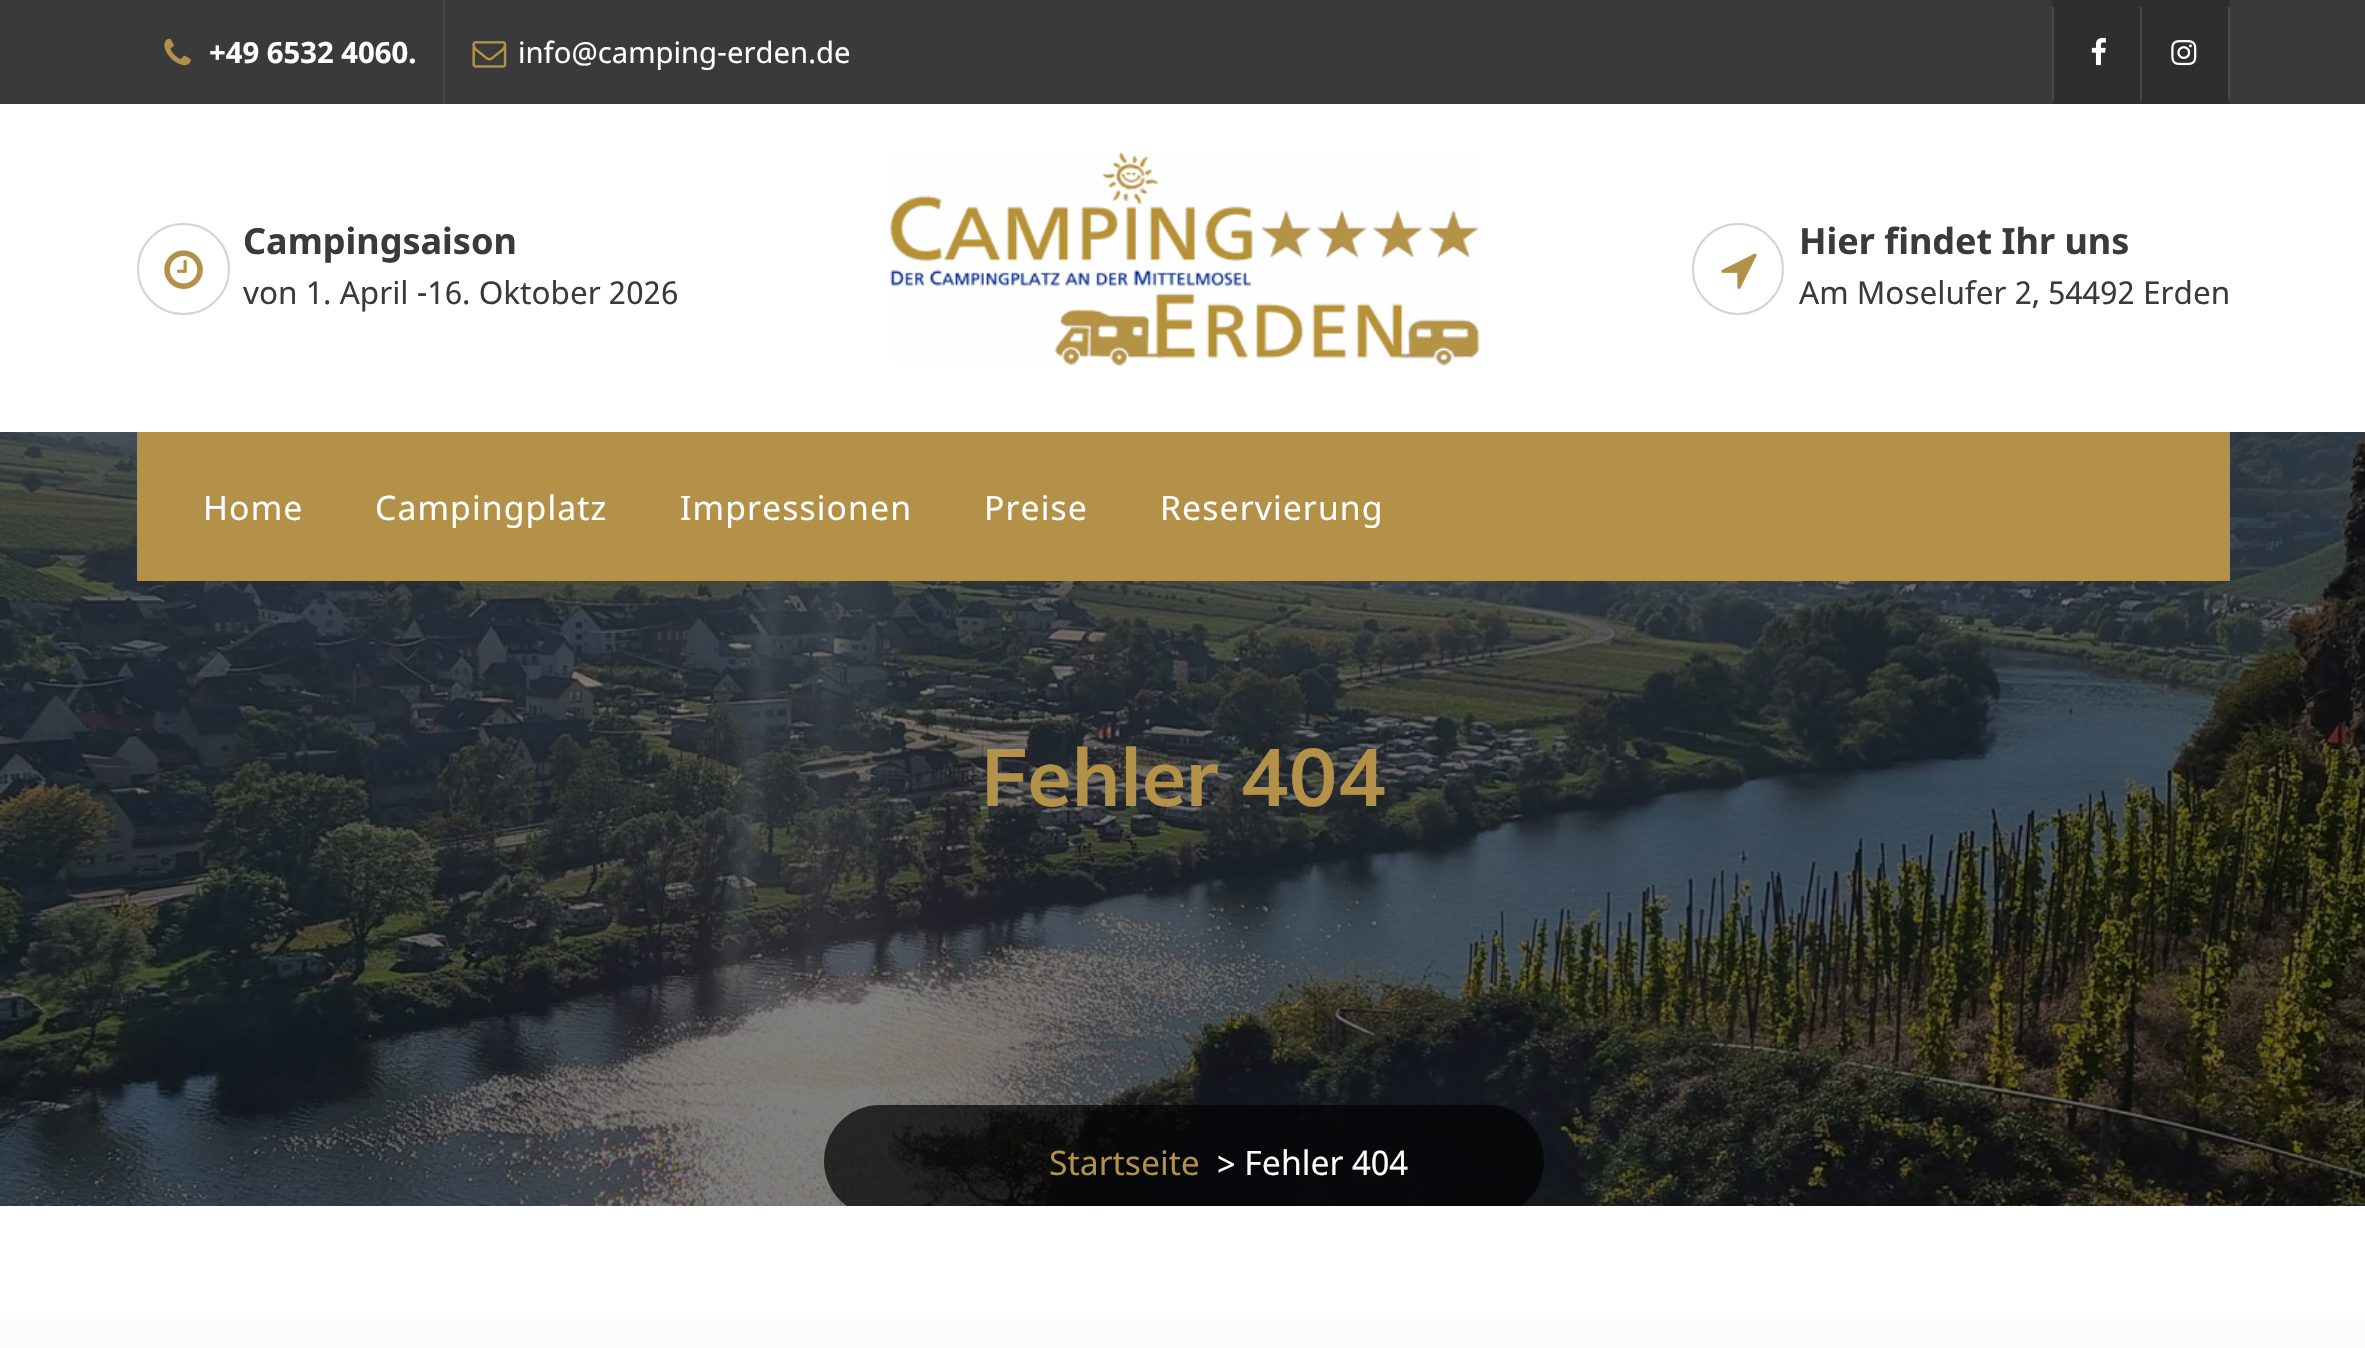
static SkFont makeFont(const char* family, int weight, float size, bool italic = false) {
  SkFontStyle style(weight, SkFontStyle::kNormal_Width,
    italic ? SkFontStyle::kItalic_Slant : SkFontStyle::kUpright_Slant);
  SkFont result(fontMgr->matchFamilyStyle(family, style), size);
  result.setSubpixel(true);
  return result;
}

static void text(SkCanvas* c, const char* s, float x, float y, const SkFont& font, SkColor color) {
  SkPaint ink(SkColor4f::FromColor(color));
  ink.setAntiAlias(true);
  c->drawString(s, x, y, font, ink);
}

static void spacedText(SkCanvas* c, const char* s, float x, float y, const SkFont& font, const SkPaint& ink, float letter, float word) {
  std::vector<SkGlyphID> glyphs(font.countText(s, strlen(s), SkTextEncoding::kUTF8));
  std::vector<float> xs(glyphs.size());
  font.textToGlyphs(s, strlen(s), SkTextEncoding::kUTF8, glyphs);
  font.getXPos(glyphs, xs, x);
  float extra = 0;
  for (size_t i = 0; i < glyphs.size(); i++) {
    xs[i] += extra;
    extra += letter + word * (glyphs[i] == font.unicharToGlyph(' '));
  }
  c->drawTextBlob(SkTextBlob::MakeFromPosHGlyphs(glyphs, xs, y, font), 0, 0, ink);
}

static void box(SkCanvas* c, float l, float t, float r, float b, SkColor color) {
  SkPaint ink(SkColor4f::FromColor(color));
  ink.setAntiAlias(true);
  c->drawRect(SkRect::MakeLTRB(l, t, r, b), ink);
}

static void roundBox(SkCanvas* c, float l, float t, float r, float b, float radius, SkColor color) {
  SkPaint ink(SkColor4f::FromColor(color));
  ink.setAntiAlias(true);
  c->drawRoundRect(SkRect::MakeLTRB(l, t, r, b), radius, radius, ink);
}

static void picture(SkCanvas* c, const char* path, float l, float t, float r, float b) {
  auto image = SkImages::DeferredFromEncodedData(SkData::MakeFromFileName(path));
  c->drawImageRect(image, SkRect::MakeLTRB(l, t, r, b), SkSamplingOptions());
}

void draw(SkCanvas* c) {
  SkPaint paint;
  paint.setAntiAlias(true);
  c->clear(0xffffffff);
  box(c, 0, 0, 2365, 104, 0xff3b3a3a);
  box(c, 443, 0, 445, 104, 0xff4a4949);
  picture(c, "img_01.png", 164, 38, 191, 66);
  SkFont face1 = makeFont("Noto Sans", 700, 29.25f);
  text(c, "+49 6532 4060.", 209, 63, face1, 0xffffffff);
  picture(c, "img_02.png", 472, 41, 507, 68);
  SkFont face2 = makeFont("Noto Sans", 400, 29.25f);
  text(c, "info@camping-erden.de", 518, 63, face2, 0xffffffff);
  box(c, 2052, 0, 2230, 104, 0xff2f2e2e);
  paint.setColor(0xff4a4949);
  c->drawPath(SkPathBuilder().moveTo(2052, 104).lineTo(2052, 7).lineTo(2054, 7).lineTo(2054, 97).close().detach(), paint);
  picture(c, "img_03.png", 2091, 37, 2106, 66);
  c->drawPath(SkPathBuilder().moveTo(2230, 7).lineTo(2230, 104).lineTo(2228, 97).lineTo(2228, 7).close().detach(), paint);
  c->drawPath(SkPathBuilder().moveTo(2140, 104).lineTo(2140, 7).lineTo(2142, 7).lineTo(2142, 97).close().detach(), paint);
  picture(c, "img_04.png", 2171, 40, 2197, 66);
  paint.setStyle(SkPaint::kStroke_Style);
  paint.setStrokeWidth(2);
  paint.setColor(0xffd4d4d4);
  c->drawRoundRect(SkRect::MakeLTRB(138, 224, 229, 314), 45, 45, paint);
  picture(c, "img_05.png", 164, 250, 203, 289);
  SkFont face3 = makeFont("Noto Sans", 700, 36);
  text(c, "Campingsaison", 243, 254, face3, 0xff3b3a3a);
  SkFont face4 = makeFont("Noto Sans", 400, 31.5f);
  text(c, "von 1. April -16. Oktober 2026", 243, 304, face4, 0xff3b3a3a);
  picture(c, "img_06.png", 890, 152, 1480, 366);
  c->drawCircle(1738, 269, 45, paint);
  picture(c, "img_07.png", 1721, 253, 1757, 289);
  text(c, "Hier findet Ihr uns", 1799, 254, face3, 0xff3b3a3a);
  text(c, "Am Moselufer 2, 54492 Erden", 1799, 304, face4, 0xff3b3a3a);
  picture(c, "img_08.png", 0, 432, 2365, 1206);
  box(c, 137, 432, 2230, 581, 0xffb39148);
  SkFont face5 = makeFont("Noto Sans", 400, 33.75f);
  paint.setStyle(SkPaint::kFill_Style);
  paint.setColor(0xffffffff);
  spacedText(c, "Home", 203, 520, face5, paint, 1.1f, 0);
  spacedText(c, "Campingplatz", 375, 520, face5, paint, 1.1f, 0);
  spacedText(c, "Impressionen", 680, 520, face5, paint, 1.1f, 0);
  spacedText(c, "Preise", 984, 520, face5, paint, 1.1f, 0);
  spacedText(c, "Reservierung", 1160, 520, face5, paint, 1.1f, 0);
  SkFont face6 = makeFont("Mulish", 700, 81);
  text(c, "Fehler 404", 981, 806, face6, 0xffb39148);
  c->save();
  c->clipRect(SkRect::MakeLTRB(0, 432, 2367, 1206));
  roundBox(c, 824, 1105, 1544, 1217, 56, 0xb3000000);
  c->restore();
  text(c, "Startseite", 1049, 1175, face5, 0xffb39148);
  text(c, "> Fehler 404", 1217, 1175, face5, 0xffffffff);
  box(c, 0, 1319, 2365, 1348, 0xfffafbfd);
}
